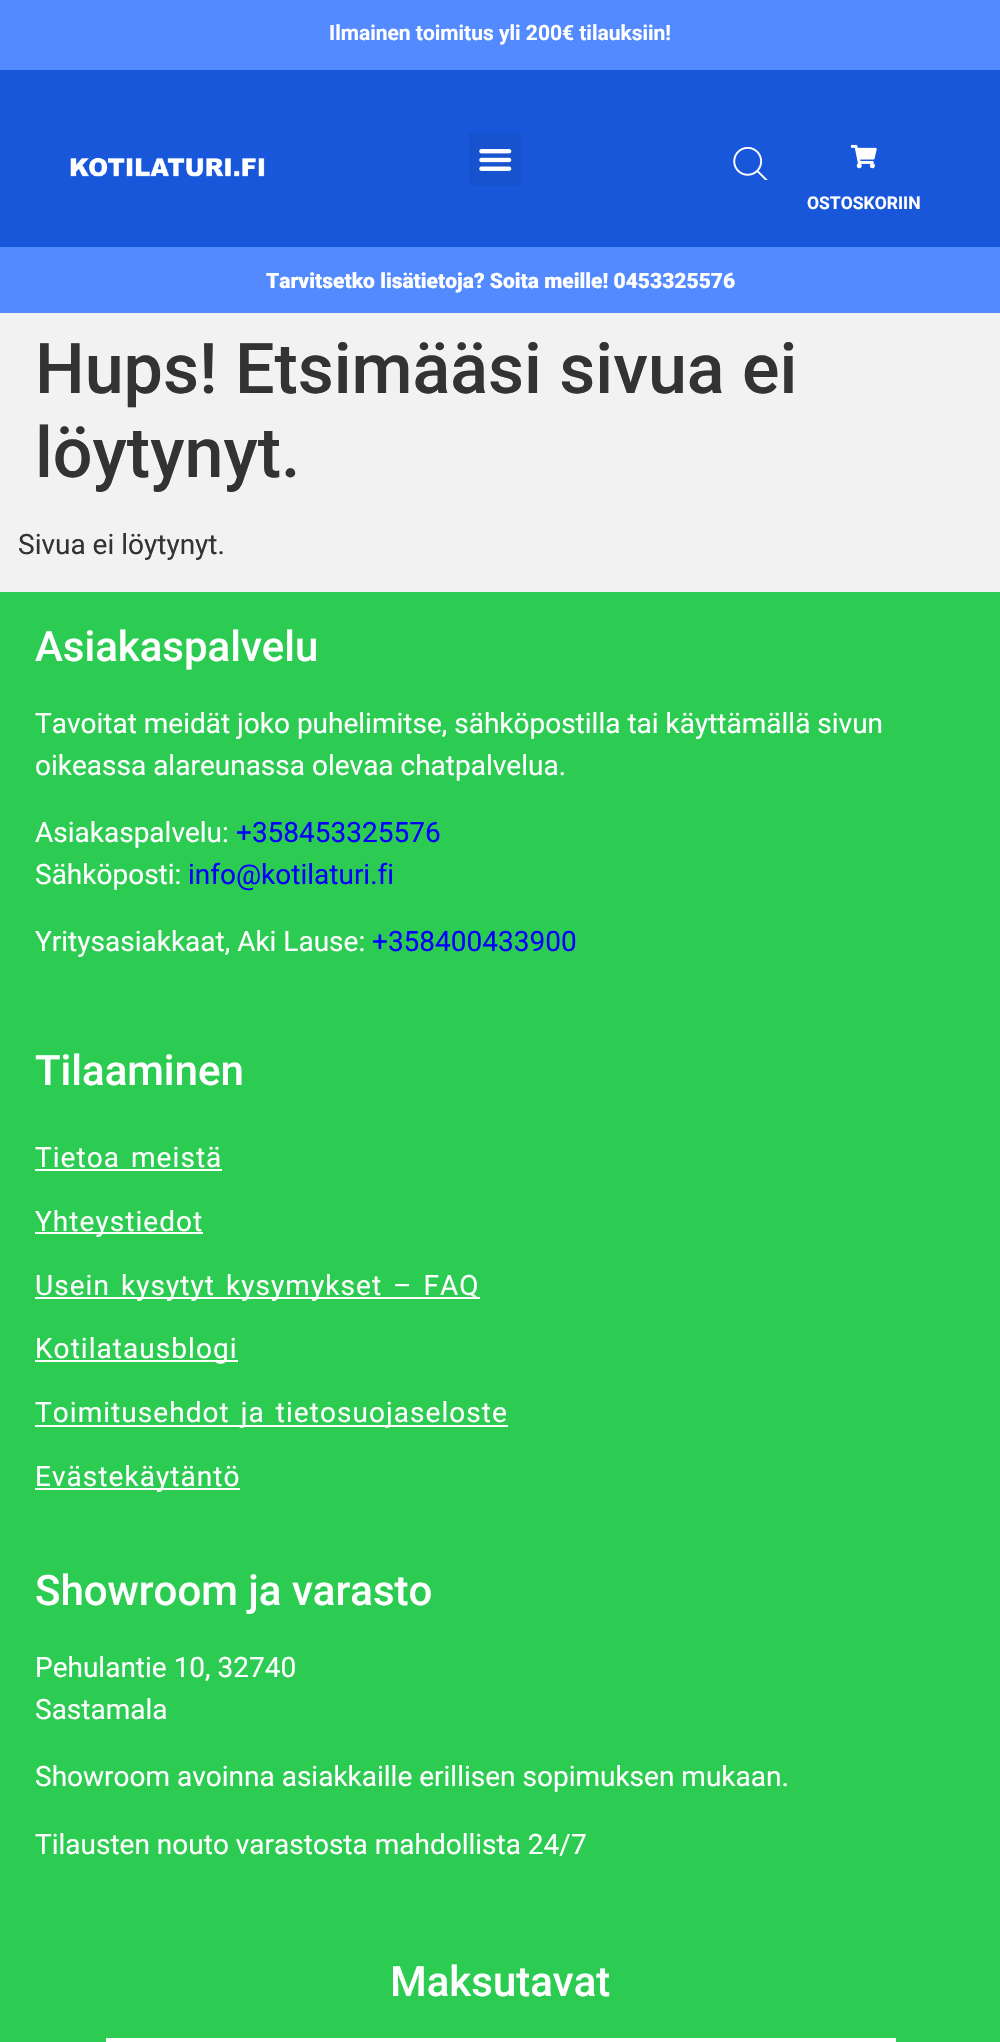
static SkFont makeFont(const char* family, int weight, float size, bool italic = false) {
  SkFontStyle style(weight, SkFontStyle::kNormal_Width,
    italic ? SkFontStyle::kItalic_Slant : SkFontStyle::kUpright_Slant);
  SkFont result(fontMgr->matchFamilyStyle(family, style), size);
  result.setSubpixel(true);
  return result;
}

static void text(SkCanvas* c, const char* s, float x, float y, const SkFont& font, SkColor color) {
  SkPaint ink(SkColor4f::FromColor(color));
  ink.setAntiAlias(true);
  c->drawString(s, x, y, font, ink);
}

static void spacedText(SkCanvas* c, const char* s, float x, float y, const SkFont& font, const SkPaint& ink, float letter, float word) {
  std::vector<SkGlyphID> glyphs(font.countText(s, strlen(s), SkTextEncoding::kUTF8));
  std::vector<float> xs(glyphs.size());
  font.textToGlyphs(s, strlen(s), SkTextEncoding::kUTF8, glyphs);
  font.getXPos(glyphs, xs, x);
  float extra = 0;
  for (size_t i = 0; i < glyphs.size(); i++) {
    xs[i] += extra;
    extra += letter + word * (glyphs[i] == font.unicharToGlyph(' '));
  }
  c->drawTextBlob(SkTextBlob::MakeFromPosHGlyphs(glyphs, xs, y, font), 0, 0, ink);
}

static void box(SkCanvas* c, float l, float t, float r, float b, SkColor color) {
  SkPaint ink(SkColor4f::FromColor(color));
  ink.setAntiAlias(true);
  c->drawRect(SkRect::MakeLTRB(l, t, r, b), ink);
}

static void picture(SkCanvas* c, const char* path, float l, float t, float r, float b) {
  auto image = SkImages::DeferredFromEncodedData(SkData::MakeFromFileName(path));
  c->drawImageRect(image, SkRect::MakeLTRB(l, t, r, b), SkSamplingOptions());
}

void draw(SkCanvas* c) {
  SkPaint paint;
  paint.setAntiAlias(true);
  c->clear(0xfff2f2f2);
  box(c, 0, 0, 1000, 70, 0xff538aff);
  SkFont face1 = makeFont("Roboto", 700, 21);
  text(c, "Ilmainen toimitus yli 200€ tilauksiin!", 329, 40, face1, 0xffffffff);
  box(c, 0, 70, 1000, 247, 0xff1856da);
  picture(c, "img_01.png", 70, 157, 265, 177);
  box(c, 469, 133, 522, 186, 0xff1752cf);
  picture(c, "img_02.png", 479, 149, 512, 171);
  picture(c, "img_03.png", 733, 147, 768, 180);
  picture(c, "img_04.png", 851, 144, 877, 169);
  SkFont face2 = makeFont("Roboto", 700, 17.5f);
  text(c, "OSTOSKORIIN", 807, 209, face2, 0xffffffff);
  box(c, 0, 247, 1000, 313, 0xff538aff);
  SkFont face3 = makeFont("Roboto", 900, 21);
  text(c, "Tarvitsetko lisätietoja? Soita meille! 0453325576", 266, 288, face3, 0xffffffff);
  SkFont face4 = makeFont("Roboto", 500, 70);
  text(c, "Hups! Etsimääsi sivua ei", 35, 393, face4, 0xff333333);
  text(c, "löytynyt.", 35, 477, face4, 0xff333333);
  SkFont face5 = makeFont("Roboto", 400, 28);
  text(c, "Sivua ei löytynyt.", 18, 554, face5, 0xff333333);
  box(c, 0, 592, 1000, 2042, 0xff2ccb51);
  SkFont face6 = makeFont("Roboto", 500, 42);
  text(c, "Asiakaspalvelu", 35, 661, face6, 0xffffffff);
  text(c, "Tavoitat meidät joko puhelimitse, sähköpostilla tai käyttämällä sivun", 35, 733, face5, 0xffffffff);
  text(c, "oikeassa alareunassa olevaa chatpalvelua.", 35, 775, face5, 0xffffffff);
  text(c, "Asiakaspalvelu:", 35, 842, face5, 0xffffffff);
  text(c, "+358453325576", 236, 842, face5, 0xff0000ff);
  text(c, "Sähköposti:", 35, 884, face5, 0xffffffff);
  text(c, "info@kotilaturi.fi", 188, 884, face5, 0xff0000ff);
  text(c, "Yritysasiakkaat, Aki Lause:", 35, 951, face5, 0xffffffff);
  text(c, "+358400433900", 372, 951, face5, 0xff0000ff);
  text(c, "Tilaaminen", 35, 1085, face6, 0xffffffff);
  paint.setColor(0xffffffff);
  spacedText(c, "Tietoa meistä", 35, 1167, face5, paint, 1.05f, 3);
  box(c, 35, 1169, 222, 1171, 0xffffffff);
  box(c, 35, 1232, 203, 1234, 0xffffffff);
  spacedText(c, "Yhteystiedot", 35, 1231, face5, paint, 1.05f, 0);
  box(c, 35, 1297, 480, 1299, 0xffffffff);
  spacedText(c, "Usein kysytyt kysymykset – FAQ", 35, 1295, face5, paint, 1.05f, 3);
  box(c, 35, 1360, 238, 1362, 0xffffffff);
  spacedText(c, "Kotilatausblogi", 35, 1358, face5, paint, 1.05f, 0);
  box(c, 35, 1425, 508, 1427, 0xffffffff);
  spacedText(c, "Toimitusehdot ja tietosuojaseloste", 35, 1422, face5, paint, 1.05f, 3);
  box(c, 35, 1488, 240, 1490, 0xffffffff);
  spacedText(c, "Evästekäytäntö", 35, 1486, face5, paint, 1.05f, 0);
  text(c, "Showroom ja varasto", 35, 1605, face6, 0xffffffff);
  text(c, "Pehulantie 10, 32740", 35, 1677, face5, 0xffffffff);
  text(c, "Sastamala", 35, 1719, face5, 0xffffffff);
  text(c, "Showroom avoinna asiakkaille erillisen sopimuksen mukaan.", 35, 1786, face5, 0xffffffff);
  text(c, "Tilausten nouto varastosta mahdollista 24/7", 35, 1854, face5, 0xffffffff);
  text(c, "Maksutavat", 390, 1996, face6, 0xffffffff);
  box(c, 106, 2038, 896, 2042, 0xffffffff);
}
